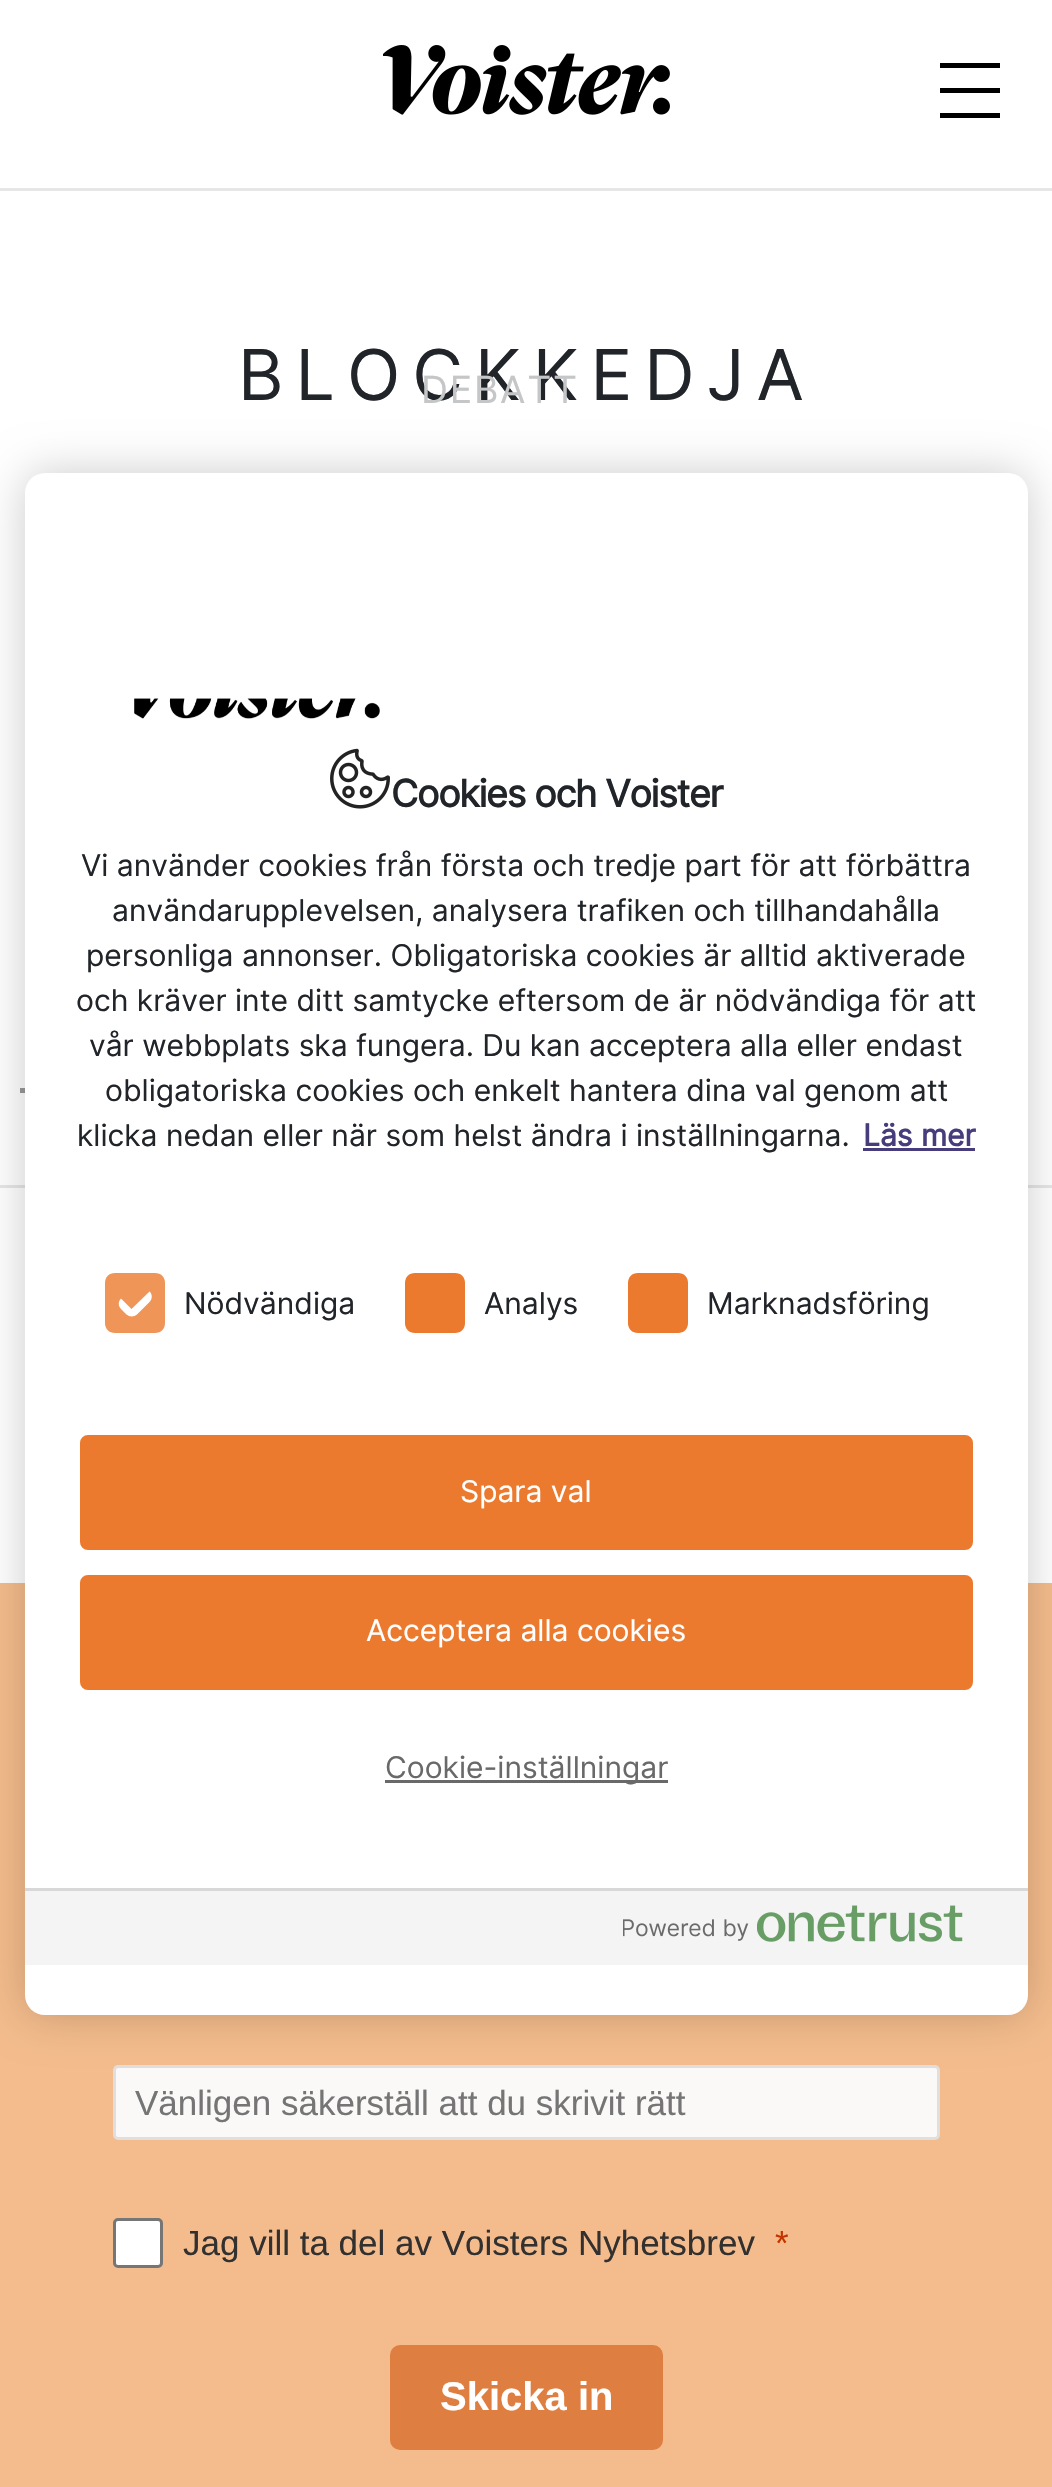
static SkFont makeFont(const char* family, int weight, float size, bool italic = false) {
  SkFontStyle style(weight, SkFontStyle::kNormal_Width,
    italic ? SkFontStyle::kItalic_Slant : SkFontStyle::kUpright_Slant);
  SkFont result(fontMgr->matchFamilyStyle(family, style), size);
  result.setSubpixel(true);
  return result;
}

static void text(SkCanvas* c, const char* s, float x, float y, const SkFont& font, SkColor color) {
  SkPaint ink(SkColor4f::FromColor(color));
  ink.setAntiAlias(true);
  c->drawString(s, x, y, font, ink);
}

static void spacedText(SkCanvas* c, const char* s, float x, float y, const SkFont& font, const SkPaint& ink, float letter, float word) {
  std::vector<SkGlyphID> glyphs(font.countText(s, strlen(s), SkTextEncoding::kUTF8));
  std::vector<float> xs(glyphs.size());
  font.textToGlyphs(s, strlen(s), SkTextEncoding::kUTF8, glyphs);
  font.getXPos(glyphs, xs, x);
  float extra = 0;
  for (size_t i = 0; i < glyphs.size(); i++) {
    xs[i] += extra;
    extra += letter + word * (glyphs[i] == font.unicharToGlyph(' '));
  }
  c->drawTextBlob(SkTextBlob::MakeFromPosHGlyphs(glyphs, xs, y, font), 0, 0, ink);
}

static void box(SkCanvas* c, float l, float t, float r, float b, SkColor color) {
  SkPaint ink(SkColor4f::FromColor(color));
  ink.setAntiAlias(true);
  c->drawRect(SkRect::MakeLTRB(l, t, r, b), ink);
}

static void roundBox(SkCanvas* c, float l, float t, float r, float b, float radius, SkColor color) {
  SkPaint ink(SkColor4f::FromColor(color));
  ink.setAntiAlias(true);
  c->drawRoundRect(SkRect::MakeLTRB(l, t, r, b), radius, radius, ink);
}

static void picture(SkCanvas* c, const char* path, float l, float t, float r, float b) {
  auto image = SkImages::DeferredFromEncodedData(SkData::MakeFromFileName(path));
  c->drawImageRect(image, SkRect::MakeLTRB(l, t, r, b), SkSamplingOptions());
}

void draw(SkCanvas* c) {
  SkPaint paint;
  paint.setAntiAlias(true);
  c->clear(0xffffffff);
  paint.setColor(0xffe6e6e6);
  c->drawPath(SkPathBuilder().moveTo(0, 1185).lineTo(0, 1188).lineTo(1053, 1188).lineTo(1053, 193).lineTo(1052, 193).lineTo(1052, 1185).close().detach(), paint);
  SkFont face1 = makeFont("Inter", 400, 70);
  paint.setColor(0xff212529);
  spacedText(c, "BLOCKKEDJA", 238, 400, face1, paint, 12, 0);
  box(c, 20, 1088, 25, 1093, 0xff999999);
  box(c, 0, 1583, 1052, 2487, 0xfff4bc8c);
  paint.setColor(0xfffaf9f8);
  c->drawRoundRect(SkRect::MakeLTRB(114.5f, 2066.5f, 938.5f, 2138.5f), 3.5f, 3.5f, paint);
  paint.setStyle(SkPaint::kStroke_Style);
  paint.setStrokeWidth(3);
  paint.setColor(0xffe1dfdd);
  c->drawRoundRect(SkRect::MakeLTRB(114.5f, 2066.5f, 938.5f, 2138.5f), 3.5f, 3.5f, paint);
  SkFont face2 = makeFont("Liberation Sans", 400, 35);
  text(c, "Vänligen säkerställ att du skrivit rätt", 135, 2115, face2, 0xff757575);
  paint.setStyle(SkPaint::kFill_Style);
  paint.setColor(0xffffffff);
  c->drawRoundRect(SkRect::MakeLTRB(114.5f, 2219.5f, 161.5f, 2266.5f), 3.5f, 3.5f, paint);
  paint.setStyle(SkPaint::kStroke_Style);
  paint.setColor(0xff767676);
  c->drawRoundRect(SkRect::MakeLTRB(114.5f, 2219.5f, 161.5f, 2266.5f), 3.5f, 3.5f, paint);
  text(c, "Jag vill ta del av Voisters Nyhetsbrev", 183, 2255, face2, 0xff323130);
  text(c, "*", 775, 2255, face2, 0xffc33400);
  roundBox(c, 390, 2345, 663, 2450, 10, 0xffde7f41);
  SkFont face3 = makeFont("Liberation Sans", 700, 40);
  text(c, "Skicka in", 440, 2410, face3, 0xffffffff);
  box(c, 0, 188, 1052, 191, 0xffe6e6e6);
  picture(c, "img_01.png", 383, 45, 670, 115);
  box(c, 940, 63, 1000, 68, 0xff000000);
  box(c, 940, 88, 1000, 93, 0xff000000);
  box(c, 940, 113, 1000, 118, 0xff000000);
  SkFont face4 = makeFont("Inter", 400, 37.5f);
  paint.setStyle(SkPaint::kFill_Style);
  paint.setColor(0xffc5c6c7);
  spacedText(c, "DEBATT", 421, 403, face4, paint, 1.75f, 0);
  paint.setColor(0x33000000);
  paint.setMaskFilter(SkMaskFilter::MakeBlur(kNormal_SkBlurStyle, 22.5f));
  c->drawRoundRect(SkRect::MakeLTRB(25, 473, 1028, 2015), 20, 20, paint);
  paint.setMaskFilter(nullptr);
  roundBox(c, 25, 473, 1028, 2015, 20, 0xffffffff);
  picture(c, "img_02.png", 134, 698, 380, 719);
  picture(c, "img_03.png", 330, 748, 390, 809);
  SkFont face5 = makeFont("Inter", 700, 37.5f);
  paint.setColor(0xff212529);
  spacedText(c, "Cookies och Voister", 391, 807, face5, paint, -1.25f, 0);
  SkFont face6 = makeFont("Inter", 400, 30);
  text(c, "Vi använder cookies från första och tredje part för att förbättra", 81, 876, face6, 0xff212529);
  text(c, "användarupplevelsen, analysera trafiken och tillhandahålla", 112, 921, face6, 0xff212529);
  text(c, "personliga annonser. Obligatoriska cookies är alltid aktiverade", 86, 966, face6, 0xff212529);
  text(c, "och kräver inte ditt samtycke eftersom de är nödvändiga för att", 76, 1011, face6, 0xff212529);
  text(c, "vår webbplats ska fungera. Du kan acceptera alla eller endast", 89, 1056, face6, 0xff212529);
  text(c, "obligatoriska cookies och enkelt hantera dina val genom att", 105, 1101, face6, 0xff212529);
  text(c, "klicka nedan eller när som helst ändra i inställningarna.", 77, 1146, face6, 0xff212529);
  SkFont face7 = makeFont("Inter", 700, 30);
  text(c, "Läs mer", 863, 1146, face7, 0xff483d7c);
  box(c, 863, 1148, 975, 1151, 0xff483d7c);
  paint.setColor(0xfff09558);
  c->drawPath(SkPathBuilder().moveTo(115, 1273).lineTo(155, 1273).cubicTo(161, 1273, 165, 1277, 165, 1283).lineTo(165, 1323).cubicTo(165, 1329, 161, 1333, 155, 1333).lineTo(115, 1333).cubicTo(109, 1333, 105, 1329, 105, 1323).lineTo(105, 1283).cubicTo(105, 1277, 109, 1273, 115, 1273).close().detach(), paint);
  paint.setColor(0xffffffff);
  c->drawPath(SkPathBuilder(SkPathFillType::kEvenOdd).moveTo(121, 1298.5f).lineTo(133.5f, 1286).cubicTo(136.5f, 1283, 141, 1283, 144, 1286).lineTo(149.5f, 1291.5f).cubicTo(152.5f, 1294, 152.5f, 1299, 149.5f, 1302).lineTo(137, 1314.5f).cubicTo(134, 1317, 129.5f, 1317, 126.5f, 1314.5f).lineTo(121, 1309).cubicTo(118, 1306, 118, 1301.5f, 121, 1298.5f).close().moveTo(121, 1298.5f).lineTo(133.5f, 1286).cubicTo(136.5f, 1283, 141, 1283, 144, 1286).lineTo(149.5f, 1291.5f).lineTo(131.5f, 1309).close().detach(), paint);
  text(c, "Nödvändiga", 184, 1314, face6, 0xff212529);
  paint.setColor(0xffec7a2e);
  c->drawPath(SkPathBuilder().moveTo(415, 1273).lineTo(455, 1273).cubicTo(461, 1273, 465, 1277, 465, 1283).lineTo(465, 1323).cubicTo(465, 1329, 461, 1333, 455, 1333).lineTo(415, 1333).cubicTo(409, 1333, 405, 1329, 405, 1323).lineTo(405, 1283).cubicTo(405, 1277, 409, 1273, 415, 1273).close().detach(), paint);
  text(c, "Analys", 484, 1314, face6, 0xff212529);
  c->drawPath(SkPathBuilder().moveTo(638, 1273).lineTo(678, 1273).cubicTo(684, 1273, 688, 1277, 688, 1283).lineTo(688, 1323).cubicTo(688, 1329, 684, 1333, 678, 1333).lineTo(638, 1333).cubicTo(632, 1333, 628, 1329, 628, 1323).lineTo(628, 1283).cubicTo(628, 1277, 632, 1273, 638, 1273).close().detach(), paint);
  text(c, "Marknadsföring", 707, 1314, face6, 0xff212529);
  c->drawRoundRect(SkRect::MakeLTRB(81.5f, 1436.5f, 971.5f, 1548.5f), 6.5f, 6.5f, paint);
  paint.setStyle(SkPaint::kStroke_Style);
  c->drawRoundRect(SkRect::MakeLTRB(81.5f, 1436.5f, 971.5f, 1548.5f), 6.5f, 6.5f, paint);
  text(c, "Spara val", 460, 1502, face6, 0xffffffff);
  paint.setStyle(SkPaint::kFill_Style);
  c->drawRoundRect(SkRect::MakeLTRB(81.5f, 1576.5f, 971.5f, 1688.5f), 6.5f, 6.5f, paint);
  paint.setStyle(SkPaint::kStroke_Style);
  c->drawRoundRect(SkRect::MakeLTRB(81.5f, 1576.5f, 971.5f, 1688.5f), 6.5f, 6.5f, paint);
  text(c, "Acceptera alla cookies", 366, 1641, face6, 0xffffffff);
  box(c, 385, 1780, 668, 1783, 0xff696969);
  text(c, "Cookie-inställningar", 385, 1778, face6, 0xff696969);
  box(c, 25, 1891, 1028, 1965, 0xfff4f4f4);
  box(c, 25, 1888, 1028, 1891, 0xffd8d8d8);
  picture(c, "img_04.png", 623, 1905, 963, 1942);
}
